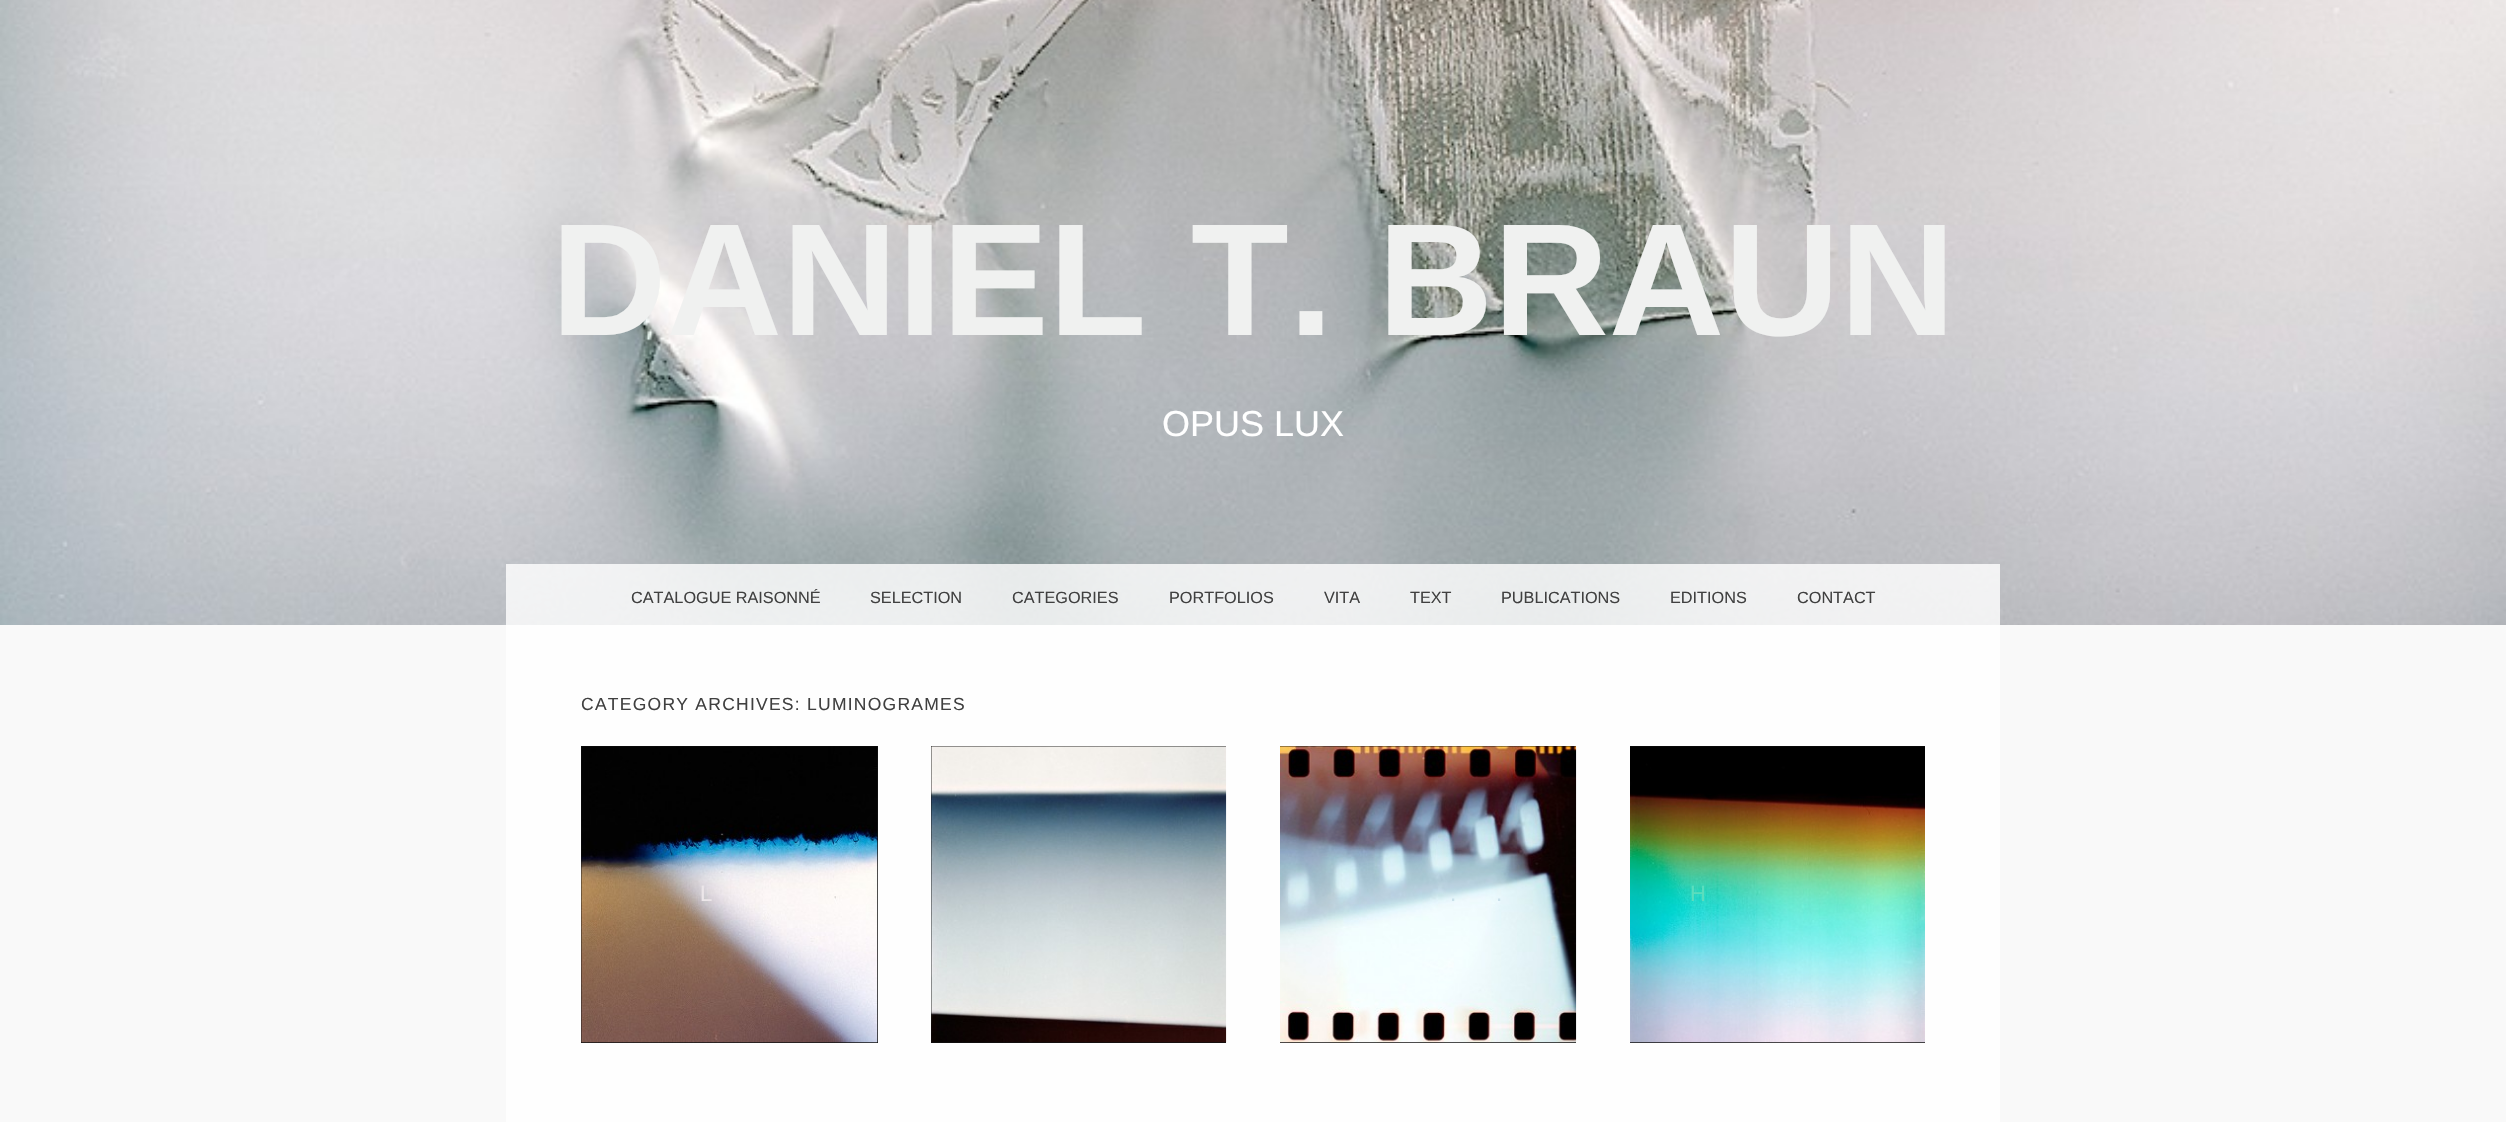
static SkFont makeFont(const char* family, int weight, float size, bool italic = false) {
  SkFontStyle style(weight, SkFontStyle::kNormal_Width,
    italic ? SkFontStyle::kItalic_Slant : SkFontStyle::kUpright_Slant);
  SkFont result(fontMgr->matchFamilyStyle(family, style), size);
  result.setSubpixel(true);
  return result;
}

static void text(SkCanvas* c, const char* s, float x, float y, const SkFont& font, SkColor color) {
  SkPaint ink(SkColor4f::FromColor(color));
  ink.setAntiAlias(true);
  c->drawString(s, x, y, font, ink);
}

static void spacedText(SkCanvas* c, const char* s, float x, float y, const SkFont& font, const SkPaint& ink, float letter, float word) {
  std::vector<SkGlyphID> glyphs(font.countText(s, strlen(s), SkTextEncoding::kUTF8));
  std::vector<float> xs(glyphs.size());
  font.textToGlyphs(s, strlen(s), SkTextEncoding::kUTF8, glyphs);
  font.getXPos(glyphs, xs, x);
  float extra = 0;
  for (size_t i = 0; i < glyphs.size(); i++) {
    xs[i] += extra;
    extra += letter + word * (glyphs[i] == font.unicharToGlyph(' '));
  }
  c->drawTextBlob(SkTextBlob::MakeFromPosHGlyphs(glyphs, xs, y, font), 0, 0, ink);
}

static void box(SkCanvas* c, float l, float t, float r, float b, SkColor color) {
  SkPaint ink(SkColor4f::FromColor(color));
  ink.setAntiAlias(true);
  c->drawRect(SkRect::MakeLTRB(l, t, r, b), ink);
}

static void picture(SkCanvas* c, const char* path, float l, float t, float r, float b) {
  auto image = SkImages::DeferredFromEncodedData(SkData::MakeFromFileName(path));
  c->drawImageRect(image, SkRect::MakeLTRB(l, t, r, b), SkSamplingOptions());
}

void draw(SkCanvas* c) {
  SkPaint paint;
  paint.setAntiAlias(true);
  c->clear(0xfff9f9f9);
  picture(c, "img_01.png", 0, 0, 2506, 625);
  SkFont face1 = makeFont("Liberation Sans", 700, 160);
  text(c, "DANIEL T. BRAUN", 551, 335, face1, 0xfff0f1f0);
  SkFont face2 = makeFont("Liberation Sans", 400, 36);
  text(c, "OPUS LUX", 1162, 436, face2, 0xffffffff);
  box(c, 506, 564, 2000, 1122, 0xccffffff);
  SkFont face3 = makeFont("Liberation Sans", 400, 16.25f);
  text(c, "CATALOGUE RAISONNÉ", 631, 603, face3, 0xff404040);
  text(c, "SELECTION", 870, 603, face3, 0xff404040);
  text(c, "CATEGORIES", 1012, 603, face3, 0xff404040);
  text(c, "PORTFOLIOS", 1169, 603, face3, 0xff404040);
  text(c, "VITA", 1324, 603, face3, 0xff404040);
  text(c, "TEXT", 1410, 603, face3, 0xff404040);
  text(c, "PUBLICATIONS", 1501, 603, face3, 0xff404040);
  text(c, "EDITIONS", 1670, 603, face3, 0xff404040);
  text(c, "CONTACT", 1797, 603, face3, 0xff404040);
  SkFont face4 = makeFont("Liberation Sans", 400, 17.5f);
  paint.setColor(0xff404040);
  spacedText(c, "CATEGORY ARCHIVES: LUMINOGRAMES", 581, 710, face4, paint, 1.25f, 0);
  box(c, 581, 746, 878, 1043, 0xff111111);
  picture(c, "img_02.png", 581, 746, 878, 1043);
  SkFont face5 = makeFont("Liberation Sans", 400, 22);
  text(c, "L", 700, 901, face5, 0xffece6e9);
  box(c, 931, 746, 1226, 1043, 0xff111111);
  picture(c, "img_03.png", 931, 746, 1227, 1043);
  box(c, 1280, 746, 1576, 1043, 0xff111111);
  picture(c, "img_04.png", 1280, 746, 1577, 1043);
  text(c, ".", 1450, 901, face5, 0xffc9e0ea);
  text(c, ".", 1496, 901, face5, 0xffc9e0ea);
  box(c, 1630, 746, 1925, 1043, 0xff111111);
  picture(c, "img_05.png", 1630, 746, 1925, 1043);
  text(c, "H", 1690, 901, face5, 0xff5bdebd);
}
